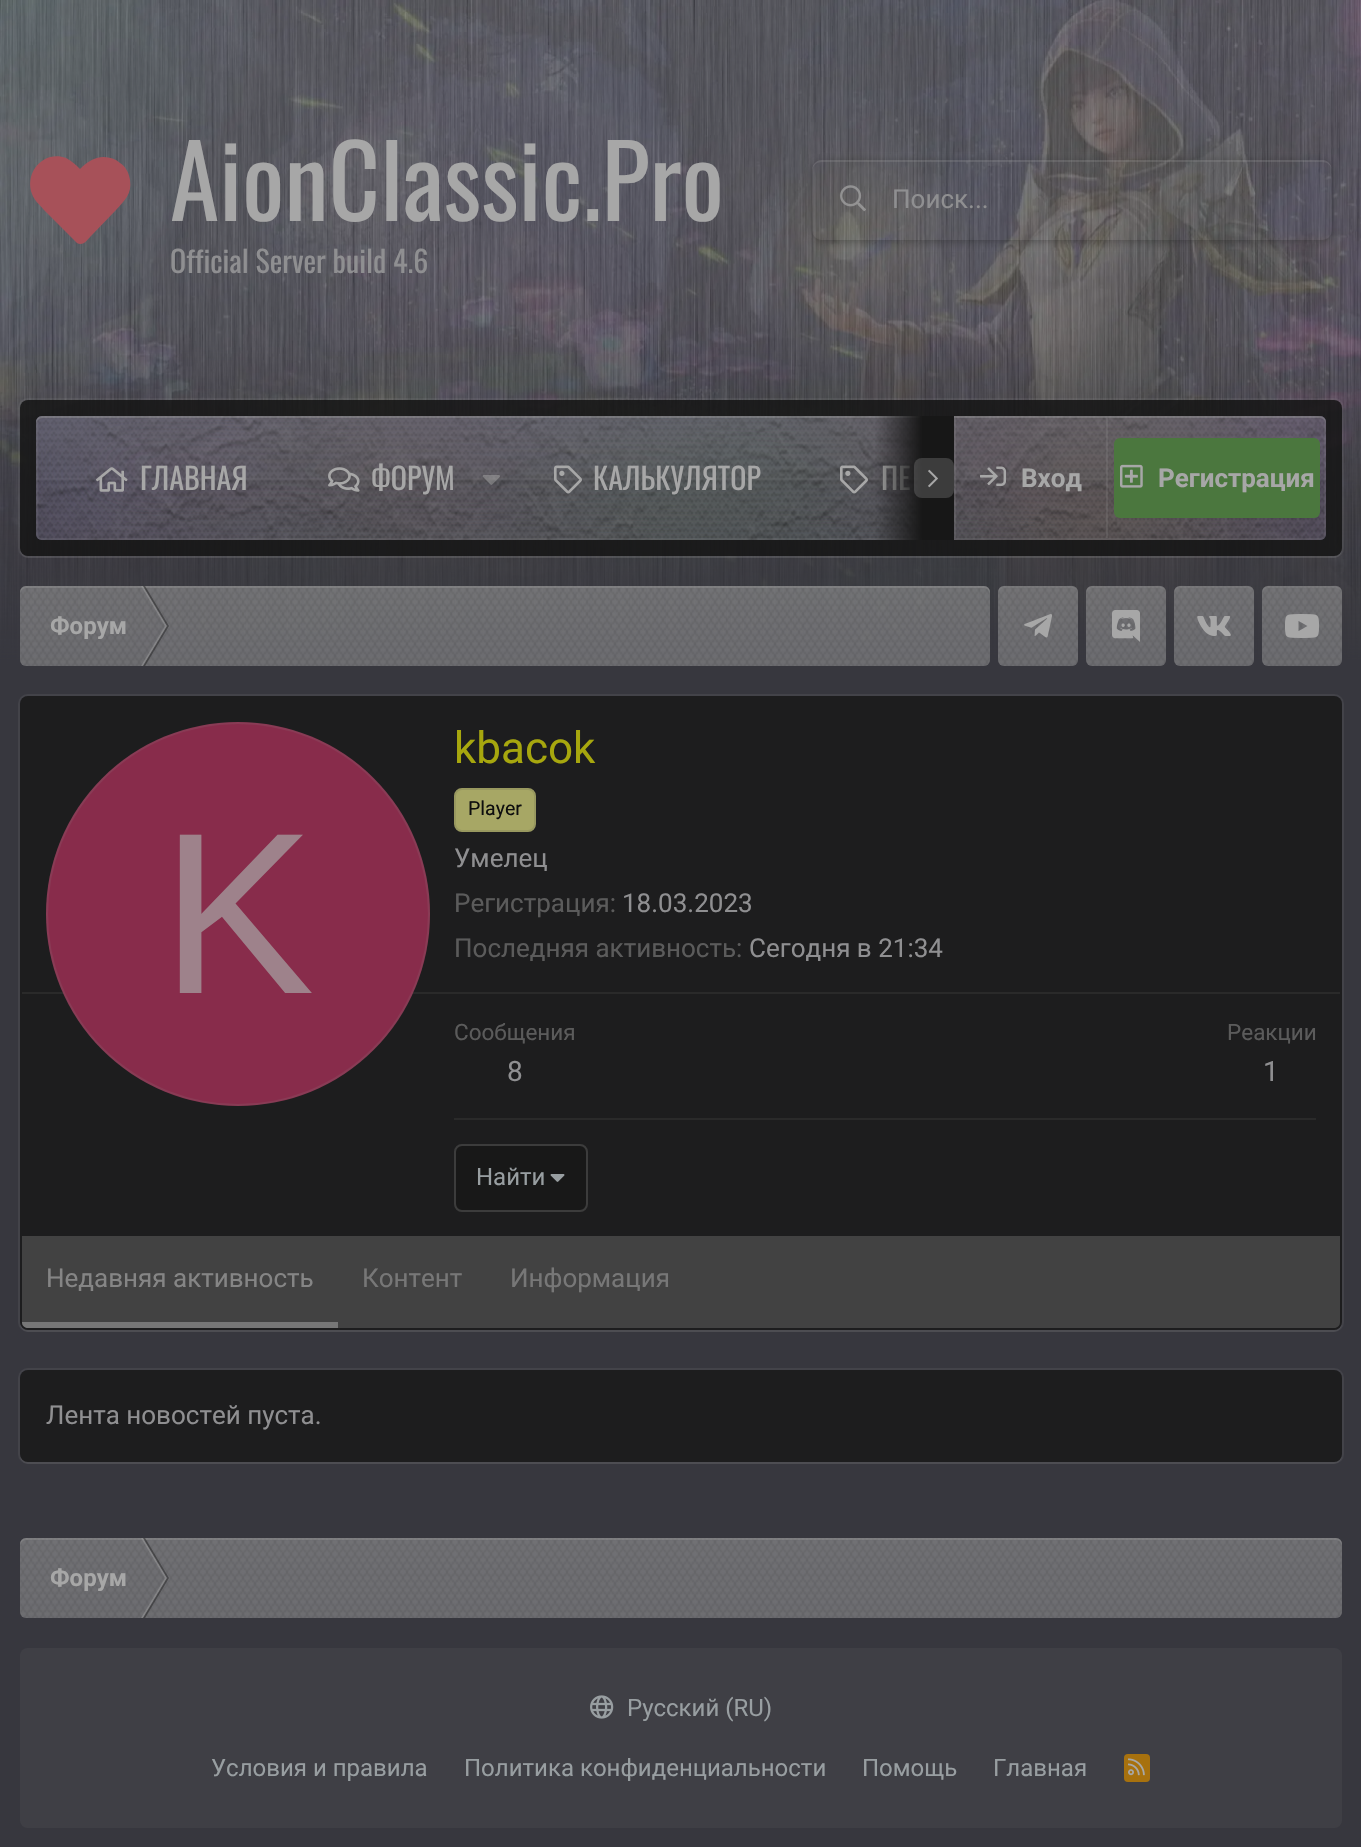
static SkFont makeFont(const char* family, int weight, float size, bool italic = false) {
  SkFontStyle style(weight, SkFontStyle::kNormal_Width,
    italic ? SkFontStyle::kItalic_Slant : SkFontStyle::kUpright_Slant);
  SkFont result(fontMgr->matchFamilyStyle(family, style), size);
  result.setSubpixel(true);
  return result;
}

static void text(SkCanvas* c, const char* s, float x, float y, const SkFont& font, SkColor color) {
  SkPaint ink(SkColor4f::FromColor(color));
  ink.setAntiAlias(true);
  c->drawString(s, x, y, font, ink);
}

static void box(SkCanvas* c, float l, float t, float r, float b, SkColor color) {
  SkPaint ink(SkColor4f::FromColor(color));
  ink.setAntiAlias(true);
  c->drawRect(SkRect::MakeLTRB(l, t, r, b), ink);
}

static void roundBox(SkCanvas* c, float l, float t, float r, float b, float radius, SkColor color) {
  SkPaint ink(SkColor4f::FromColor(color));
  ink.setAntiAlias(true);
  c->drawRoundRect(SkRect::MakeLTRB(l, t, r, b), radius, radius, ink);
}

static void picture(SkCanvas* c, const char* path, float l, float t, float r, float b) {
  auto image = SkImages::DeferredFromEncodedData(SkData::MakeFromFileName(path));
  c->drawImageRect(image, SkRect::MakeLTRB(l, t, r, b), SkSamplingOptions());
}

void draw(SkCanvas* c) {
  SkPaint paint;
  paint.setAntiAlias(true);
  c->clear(0xff37373e);
  picture(c, "img_01.png", 0, 0, 1361, 682);
  paint.setColor(0xffa75159);
  c->drawPath(SkPathBuilder().moveTo(120, 163).cubicTo(126, 167, 129, 173, 130, 180).cubicTo(132, 194, 125, 200, 116, 210).lineTo(91, 236).cubicTo(88, 239, 83, 247, 77, 243).lineTo(44, 210).cubicTo(40, 205, 34, 200, 32, 194).cubicTo(24, 172, 44, 150, 66, 158).cubicTo(72, 161, 76, 165, 80, 169).cubicTo(83, 166, 86, 163, 90, 161).cubicTo(100, 155, 112, 156, 120, 163).close().detach(), paint);
  SkFont face1 = makeFont("Oswald", 400, 100);
  text(c, "AionClassic.Pro", 170, 221, face1, 0xffa7a7a7);
  SkFont face2 = makeFont("Oswald", 400, 30);
  text(c, "Official Server build 4.6", 170, 273, face2, 0xff8f8f91);
  c->save();
  c->clipPath(SkPathBuilder(SkPathFillType::kEvenOdd).moveTo(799, 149).lineTo(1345, 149).lineTo(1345, 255).lineTo(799, 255).close().moveTo(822, 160).lineTo(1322, 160).cubicTo(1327.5f, 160, 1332, 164.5f, 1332, 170).lineTo(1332, 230).cubicTo(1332, 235.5f, 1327.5f, 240, 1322, 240).lineTo(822, 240).cubicTo(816.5f, 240, 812, 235.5f, 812, 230).lineTo(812, 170).cubicTo(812, 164.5f, 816.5f, 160, 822, 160).close().detach(), true);
  paint.setColor(0x4d0e0e0e);
  paint.setMaskFilter(SkMaskFilter::MakeBlur(kNormal_SkBlurStyle, 4));
  c->drawRoundRect(SkRect::MakeLTRB(812, 162, 1332, 242), 10, 10, paint);
  paint.setMaskFilter(nullptr);
  c->restore();
  paint.setColor(0x33a7a7a7);
  c->drawPath(SkPathBuilder().moveTo(822, 162).lineTo(1322, 162).cubicTo(1328, 162, 1332, 166, 1332, 172).cubicTo(1332, 166, 1329, 160, 1322, 160).lineTo(822, 160).cubicTo(815, 160, 812, 166, 812, 172).cubicTo(812, 166, 816, 162, 822, 162).close().detach(), paint);
  picture(c, "img_02.png", 840, 185, 866, 212);
  SkFont face3 = makeFont("Roboto", 400, 26);
  text(c, "Поиск...", 892, 208, face3, 0xff8f8f91);
  paint.setColor(0x1aa7a7a7);
  c->drawPath(SkPathBuilder().moveTo(20, 548).lineTo(20, 550).cubicTo(20, 554, 24, 558, 28, 558).lineTo(1334, 558).cubicTo(1338, 558, 1342, 554, 1342, 550).lineTo(1342, 548).cubicTo(1342, 552, 1338, 556, 1334, 556).lineTo(28, 556).cubicTo(24, 556, 20, 552, 20, 548).close().detach(), paint);
  paint.setStyle(SkPaint::kStroke_Style);
  paint.setStrokeWidth(2);
  c->drawRoundRect(SkRect::MakeLTRB(19, 399, 1343, 557), 9, 9, paint);
  roundBox(c, 20, 400, 1342, 556, 8, 0xd9141414);
  roundBox(c, 20, 586, 990, 666, 6, 0x4da7a7a7);
  picture(c, "img_13.png", 20, 586, 990, 666);
  paint.setStyle(SkPaint::kFill_Style);
  paint.setColor(0x4da7a7a7);
  c->drawPath(SkPathBuilder().moveTo(26, 588).lineTo(984, 588).cubicTo(987, 588, 990, 591, 990, 594).lineTo(990, 592).cubicTo(990, 589, 987, 586, 984, 586).lineTo(26, 586).cubicTo(23, 586, 20, 589, 20, 592).lineTo(20, 594).cubicTo(20, 591, 23, 588, 26, 588).close().detach(), paint);
  paint.setColor(0x61a7a7a7);
  c->drawPath(SkPathBuilder().moveTo(141, 586).lineTo(143, 586).lineTo(167, 626).lineTo(165, 626).close().detach(), paint);
  paint.setColor(0x660e0e0e);
  c->drawPath(SkPathBuilder().moveTo(143, 586).lineTo(145, 586).lineTo(169, 626).lineTo(167, 626).close().detach(), paint);
  paint.setColor(0x61a7a7a7);
  c->drawPath(SkPathBuilder().moveTo(165, 626).lineTo(167, 626).lineTo(143, 666).lineTo(141, 666).close().detach(), paint);
  paint.setColor(0x660e0e0e);
  c->drawPath(SkPathBuilder().moveTo(167, 626).lineTo(169, 626).lineTo(145, 666).lineTo(143, 666).close().detach(), paint);
  roundBox(c, 998, 586, 1078, 666, 6, 0x4da7a7a7);
  picture(c, "img_14.png", 998, 586, 1078, 666);
  paint.setColor(0x26a7a7a7);
  c->drawPath(SkPathBuilder().moveTo(1004, 588).lineTo(1072, 588).cubicTo(1075, 588, 1078, 591, 1078, 594).cubicTo(1078, 583, 1069, 586, 1061, 586).lineTo(1015, 586).cubicTo(1007, 586, 998, 583, 998, 594).cubicTo(998, 591, 1001, 588, 1004, 588).close().detach(), paint);
  picture(c, "img_15.png", 1024, 614, 1052, 638);
  roundBox(c, 1086, 586, 1166, 666, 6, 0x4da7a7a7);
  picture(c, "img_16.png", 1086, 586, 1166, 666);
  c->drawPath(SkPathBuilder().moveTo(1092, 588).lineTo(1160, 588).cubicTo(1163, 588, 1166, 591, 1166, 594).cubicTo(1166, 583, 1157, 586, 1149, 586).lineTo(1103, 586).cubicTo(1095, 586, 1086, 583, 1086, 594).cubicTo(1086, 591, 1089, 588, 1092, 588).close().detach(), paint);
  picture(c, "img_17.png", 1112, 610, 1140, 642);
  roundBox(c, 1174, 586, 1254, 666, 6, 0x4da7a7a7);
  picture(c, "img_18.png", 1174, 586, 1254, 666);
  c->drawPath(SkPathBuilder().moveTo(1180, 588).lineTo(1248, 588).cubicTo(1251, 588, 1254, 591, 1254, 594).cubicTo(1254, 583, 1245, 586, 1237, 586).lineTo(1191, 586).cubicTo(1183, 586, 1174, 583, 1174, 594).cubicTo(1174, 591, 1177, 588, 1180, 588).close().detach(), paint);
  picture(c, "img_19.png", 1197, 616, 1231, 636);
  roundBox(c, 1262, 586, 1342, 666, 6, 0x4da7a7a7);
  picture(c, "img_20.png", 1262, 586, 1342, 666);
  c->drawPath(SkPathBuilder().moveTo(1268, 588).lineTo(1336, 588).cubicTo(1339, 588, 1342, 591, 1342, 594).cubicTo(1342, 583, 1333, 586, 1325, 586).lineTo(1279, 586).cubicTo(1271, 586, 1262, 583, 1262, 594).cubicTo(1262, 591, 1265, 588, 1268, 588).close().detach(), paint);
  picture(c, "img_21.png", 1284, 614, 1320, 638);
  paint.setColor(0xff424248);
  c->drawPath(SkPathBuilder().moveTo(20, 1322).lineTo(20, 1324).cubicTo(20, 1328, 24, 1332, 28, 1332).lineTo(1334, 1332).cubicTo(1338, 1332, 1342, 1328, 1342, 1324).lineTo(1342, 1322).cubicTo(1342, 1326, 1338, 1330, 1334, 1330).lineTo(28, 1330).cubicTo(24, 1330, 20, 1326, 20, 1322).close().detach(), paint);
  paint.setStyle(SkPaint::kStroke_Style);
  paint.setColor(0x1aa7a7a7);
  c->drawRoundRect(SkRect::MakeLTRB(19, 695, 1343, 1331), 9, 9, paint);
  roundBox(c, 20, 696, 1342, 1330, 8, 0xd9171717);
  box(c, 22, 992, 1340, 994, 0xff2a2a2a);
  paint.setStyle(SkPaint::kFill_Style);
  paint.setColor(0xff882c4b);
  c->drawCircle(238, 914, 192, paint);
  SkFont face4 = makeFont("Liberation Sans", 400, 230);
  text(c, "K", 161, 993, face4, 0xff9e828b);
  paint.setStyle(SkPaint::kStroke_Style);
  paint.setColor(0x268f8f8f);
  c->drawCircle(238, 914, 191, paint);
  paint.setStyle(SkPaint::kFill_Style);
  paint.setColor(0xffa7a765);
  c->drawRoundRect(SkRect::MakeLTRB(455, 789, 535, 831), 7, 7, paint);
  paint.setStyle(SkPaint::kStroke_Style);
  paint.setColor(0xff98985f);
  c->drawRoundRect(SkRect::MakeLTRB(455, 789, 535, 831), 7, 7, paint);
  c->save();
  c->clipPath(SkPathBuilder().moveTo(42, 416).lineTo(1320, 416).cubicTo(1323.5f, 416, 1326, 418.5f, 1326, 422).lineTo(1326, 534).cubicTo(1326, 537.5f, 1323.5f, 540, 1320, 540).lineTo(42, 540).cubicTo(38.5f, 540, 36, 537.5f, 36, 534).lineTo(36, 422).cubicTo(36, 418.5f, 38.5f, 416, 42, 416).close().detach(), true);
  paint.setStyle(SkPaint::kFill_Style);
  paint.setColor(0xff36364d);
  paint.setMaskFilter(SkMaskFilter::MakeBlur(kNormal_SkBlurStyle, 70));
  c->drawRect(SkRect::MakeLTRB(-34, 346, 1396, 610), paint);
  paint.setMaskFilter(nullptr);
  c->restore();
  picture(c, "img_03.png", 36, 416, 1326, 540);
  roundBox(c, 36, 416, 1326, 540, 6, 0x1aa7a7a7);
  picture(c, "img_04.png", 36, 416, 1326, 540);
  paint.setColor(0x4da7a7a7);
  c->drawPath(SkPathBuilder().moveTo(42, 418).cubicTo(39, 418, 36, 421, 36, 424).lineTo(36, 422).cubicTo(36, 419, 39, 416, 42, 416).lineTo(1320, 416).cubicTo(1323, 416, 1326, 419, 1326, 422).lineTo(1326, 424).cubicTo(1326, 421, 1323, 418, 1320, 418).close().detach(), paint);
  paint.setStyle(SkPaint::kStroke_Style);
  paint.setColor(0x1aa7a7a7);
  c->drawRoundRect(SkRect::MakeLTRB(37, 417, 1325, 539), 5, 5, paint);
  picture(c, "img_05.png", 96, 467, 128, 492);
  text(c, "ГЛАВНАЯ", 140, 490, face2, 0xffa7a7a7);
  picture(c, "img_06.png", 328, 467, 360, 492);
  text(c, "ФОРУМ", 371, 490, face2, 0xffa7a7a7);
  picture(c, "img_07.png", 482, 475, 500, 485);
  picture(c, "img_08.png", 554, 465, 582, 494);
  text(c, "КАЛЬКУЛЯТОР", 593, 490, face2, 0xffa7a7a7);
  picture(c, "img_09.png", 840, 465, 868, 494);
  text(c, "ПЕ", 881, 490, face2, 0xffa7a7a7);
  paint.setStyle(SkPaint::kFill_Style);
  {
    const SkColor colors[] = {0x00171717, 0xff171717};
    const float stops[] = {0, 0.6f};
    const SkPoint ends[] = {{874, 478}, {954, 478}};
    paint.setShader(SkGradientShader::MakeLinear(ends, colors, stops, 2, SkTileMode::kClamp));
    paint.setAlpha(255);
  }
  c->drawRect(SkRect::MakeLTRB(875, 416, 954, 540), paint);
  roundBox(c, 914, 458, 954, 498, 8, 0x40a7a7a7);
  picture(c, "img_10.png", 928, 469, 938, 488);
  box(c, 954, 418, 956, 538, 0x26a7a7a7);
  picture(c, "img_11.png", 980, 466, 1006, 486);
  SkFont face5 = makeFont("Roboto", 700, 26);
  text(c, "Вход", 1021, 487, face5, 0xffa7a7a7);
  box(c, 1106, 418, 1108, 538, 0x26a7a7a7);
  roundBox(c, 1114, 438, 1320, 518, 6, 0xff4b773e);
  picture(c, "img_12.png", 1120, 464, 1143, 488);
  text(c, "Регистрация", 1158, 487, face5, 0xffa7a7a7);
  SkFont face6 = makeFont("Roboto", 700, 24);
  text(c, "Форум", 50, 634, face6, 0xffa7a7a7);
  SkFont face7 = makeFont("Roboto", 400, 44);
  text(c, "kbacok", 454, 763, face7, 0xffa7a70e);
  SkFont face8 = makeFont("Roboto", 400, 19.5f);
  text(c, "Player", 468, 815, face8, 0xff0e0e0e);
  text(c, "Умелец", 454, 867, face3, 0xff8f8f91);
  text(c, "Регистрация:", 454, 912, face3, 0xff5b5b5b);
  text(c, "18.03.2023", 622, 912, face3, 0xff8f8f91);
  text(c, "Последняя активность:", 454, 957, face3, 0xff5b5b5b);
  text(c, "Сегодня в 21:34", 749, 957, face3, 0xff8f8f91);
  SkFont face9 = makeFont("Roboto", 400, 22.5f);
  text(c, "Сообщения", 454, 1040, face9, 0xff5b5b5b);
  SkFont face10 = makeFont("Roboto", 400, 28);
  text(c, "8", 507, 1081, face10, 0xff8f8f91);
  text(c, "Реакции", 1227, 1040, face9, 0xff5b5b5b);
  text(c, "1", 1263, 1081, face10, 0xff8f8f91);
  box(c, 454, 1118, 1316, 1120, 0xff2a2a2a);
  paint.setShader(nullptr);
  paint.setColor(0xff181818);
  c->drawRoundRect(SkRect::MakeLTRB(455, 1145, 587, 1211), 7, 7, paint);
  paint.setStyle(SkPaint::kStroke_Style);
  paint.setColor(0xff3c3c3c);
  c->drawRoundRect(SkRect::MakeLTRB(455, 1145, 587, 1211), 7, 7, paint);
  SkFont face11 = makeFont("Roboto", 400, 24);
  text(c, "Найти", 476, 1185, face11, 0xff989ea1);
  picture(c, "img_22.png", 550, 1174, 565, 1182);
  paint.setStyle(SkPaint::kFill_Style);
  paint.setColor(0xff424242);
  c->drawPath(SkPathBuilder().moveTo(22, 1236).lineTo(1340, 1236).lineTo(1340, 1322).cubicTo(1340, 1325.5f, 1337.5f, 1328, 1334, 1328).lineTo(28, 1328).cubicTo(24.5f, 1328, 22, 1325.5f, 22, 1322).close().detach(), paint);
  paint.setColor(0xff777777);
  c->drawPath(SkPathBuilder().moveTo(22, 1322).lineTo(338, 1322).lineTo(338, 1328).lineTo(28, 1328).cubicTo(24.5f, 1328, 22, 1325.5f, 22, 1322).close().detach(), paint);
  text(c, "Недавняя активность", 46, 1287, face3, 0xff858585);
  text(c, "Контент", 362, 1287, face3, 0xff777777);
  text(c, "Информация", 510, 1287, face3, 0xff777777);
  paint.setColor(0xff424248);
  c->drawPath(SkPathBuilder().moveTo(20, 1454).lineTo(20, 1456).cubicTo(20, 1460, 24, 1464, 28, 1464).lineTo(1334, 1464).cubicTo(1338, 1464, 1342, 1460, 1342, 1456).lineTo(1342, 1454).cubicTo(1342, 1458, 1338, 1462, 1334, 1462).lineTo(28, 1462).cubicTo(24, 1462, 20, 1458, 20, 1454).close().detach(), paint);
  paint.setStyle(SkPaint::kStroke_Style);
  paint.setColor(0x1aa7a7a7);
  c->drawRoundRect(SkRect::MakeLTRB(19, 1369, 1343, 1463), 9, 9, paint);
  roundBox(c, 20, 1370, 1342, 1462, 8, 0xd9171717);
  text(c, "Лента новостей пуста.", 46, 1424, face3, 0xff8f8f91);
  roundBox(c, 20, 1538, 1342, 1618, 6, 0x4da7a7a7);
  picture(c, "img_23.png", 20, 1538, 1342, 1618);
  paint.setStyle(SkPaint::kFill_Style);
  paint.setColor(0x4da7a7a7);
  c->drawPath(SkPathBuilder().moveTo(26, 1540).lineTo(1336, 1540).cubicTo(1339, 1540, 1342, 1543, 1342, 1546).lineTo(1342, 1544).cubicTo(1342, 1541, 1339, 1538, 1336, 1538).lineTo(26, 1538).cubicTo(23, 1538, 20, 1541, 20, 1544).lineTo(20, 1546).cubicTo(20, 1543, 23, 1540, 26, 1540).close().detach(), paint);
  text(c, "Форум", 50, 1586, face6, 0xffa7a7a7);
  paint.setColor(0x61a7a7a7);
  c->drawPath(SkPathBuilder().moveTo(141, 1538).lineTo(143, 1538).lineTo(167, 1578).lineTo(165, 1578).close().detach(), paint);
  paint.setColor(0x660e0e0e);
  c->drawPath(SkPathBuilder().moveTo(143, 1538).lineTo(145, 1538).lineTo(169, 1578).lineTo(167, 1578).close().detach(), paint);
  paint.setColor(0x61a7a7a7);
  c->drawPath(SkPathBuilder().moveTo(165, 1578).lineTo(167, 1578).lineTo(143, 1618).lineTo(141, 1618).close().detach(), paint);
  paint.setColor(0x660e0e0e);
  c->drawPath(SkPathBuilder().moveTo(167, 1578).lineTo(169, 1578).lineTo(145, 1618).lineTo(143, 1618).close().detach(), paint);
  roundBox(c, 20, 1648, 1342, 1828, 8, 0xff3f3f45);
  picture(c, "img_24.png", 590, 1695, 614, 1719);
  text(c, "Русский (RU)", 627, 1716, face11, 0xff989ea1);
  text(c, "Условия и правила", 211, 1776, face11, 0xff989ea1);
  text(c, "Политика конфиденциальности", 464, 1776, face11, 0xff989ea1);
  text(c, "Помощь", 862, 1776, face11, 0xff989ea1);
  text(c, "Главная", 993, 1776, face11, 0xff989ea1);
  roundBox(c, 1124, 1754, 1150, 1782, 4, 0xffa7710e);
  picture(c, "img_25.png", 1128, 1758, 1145, 1776);
}
